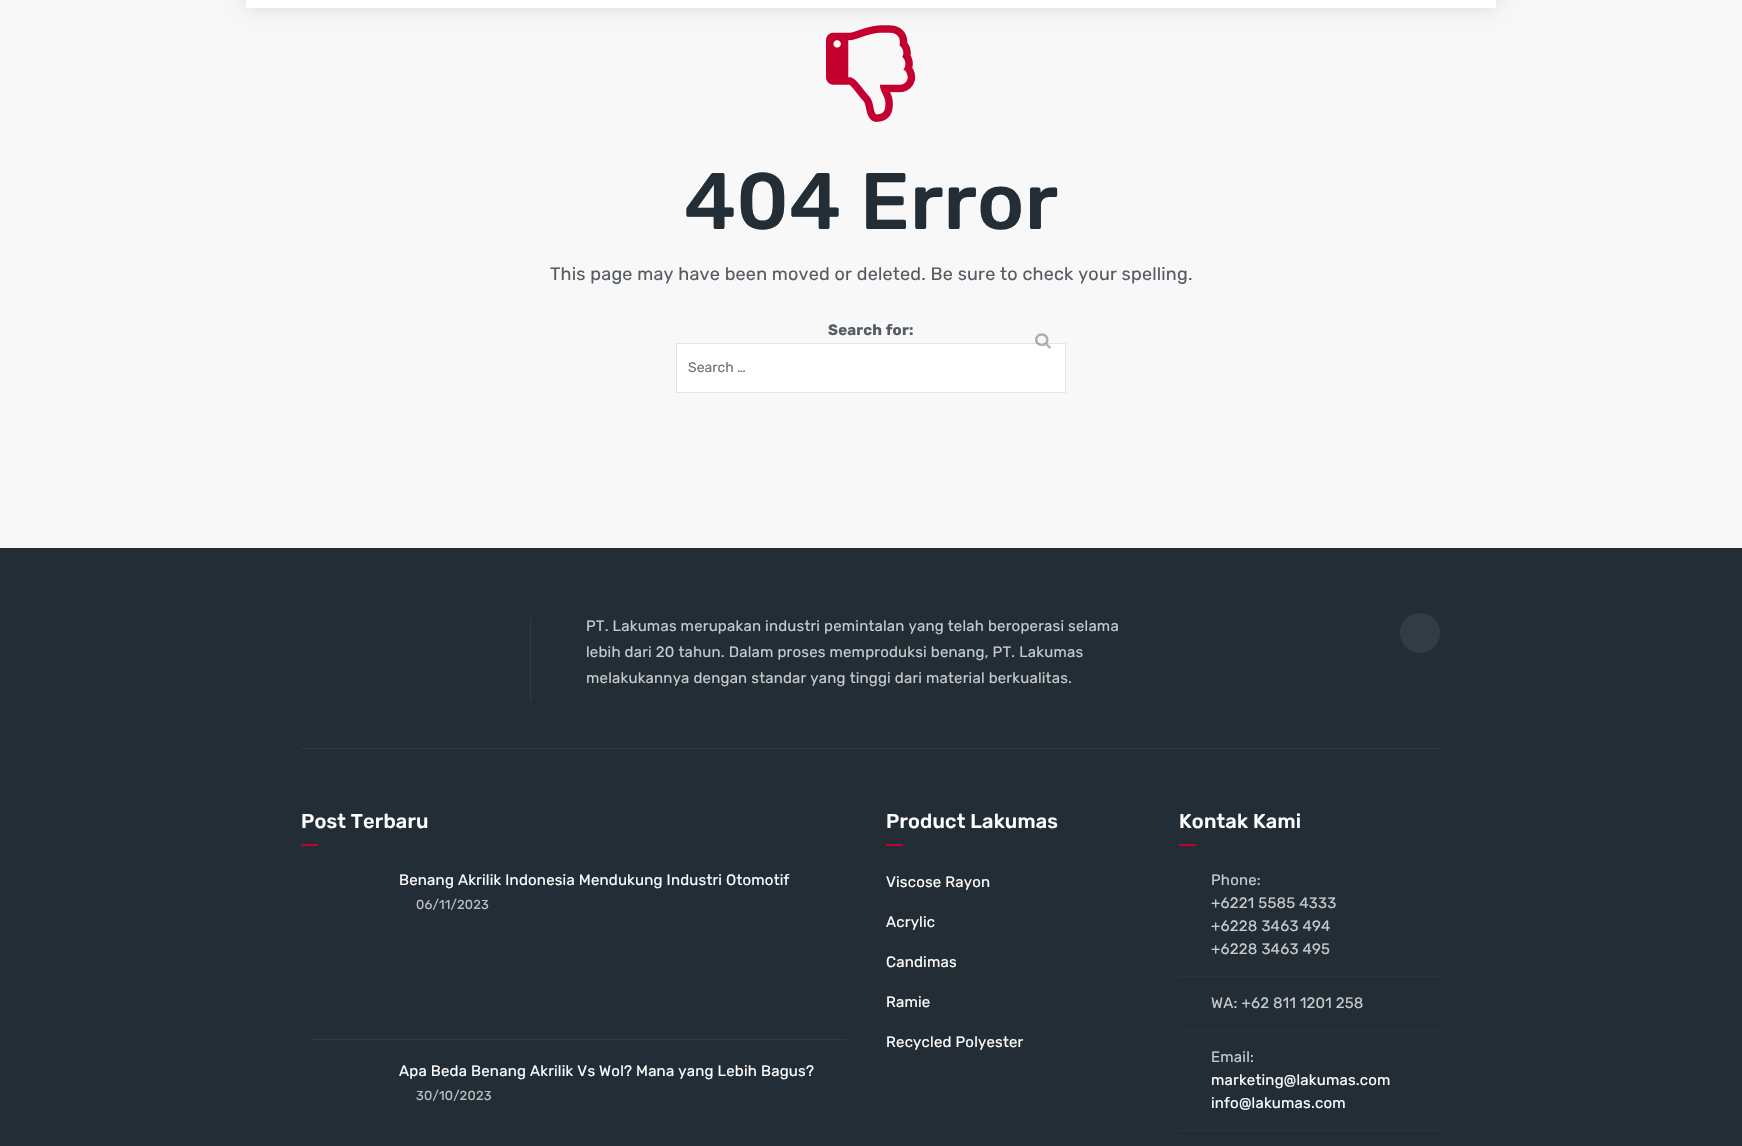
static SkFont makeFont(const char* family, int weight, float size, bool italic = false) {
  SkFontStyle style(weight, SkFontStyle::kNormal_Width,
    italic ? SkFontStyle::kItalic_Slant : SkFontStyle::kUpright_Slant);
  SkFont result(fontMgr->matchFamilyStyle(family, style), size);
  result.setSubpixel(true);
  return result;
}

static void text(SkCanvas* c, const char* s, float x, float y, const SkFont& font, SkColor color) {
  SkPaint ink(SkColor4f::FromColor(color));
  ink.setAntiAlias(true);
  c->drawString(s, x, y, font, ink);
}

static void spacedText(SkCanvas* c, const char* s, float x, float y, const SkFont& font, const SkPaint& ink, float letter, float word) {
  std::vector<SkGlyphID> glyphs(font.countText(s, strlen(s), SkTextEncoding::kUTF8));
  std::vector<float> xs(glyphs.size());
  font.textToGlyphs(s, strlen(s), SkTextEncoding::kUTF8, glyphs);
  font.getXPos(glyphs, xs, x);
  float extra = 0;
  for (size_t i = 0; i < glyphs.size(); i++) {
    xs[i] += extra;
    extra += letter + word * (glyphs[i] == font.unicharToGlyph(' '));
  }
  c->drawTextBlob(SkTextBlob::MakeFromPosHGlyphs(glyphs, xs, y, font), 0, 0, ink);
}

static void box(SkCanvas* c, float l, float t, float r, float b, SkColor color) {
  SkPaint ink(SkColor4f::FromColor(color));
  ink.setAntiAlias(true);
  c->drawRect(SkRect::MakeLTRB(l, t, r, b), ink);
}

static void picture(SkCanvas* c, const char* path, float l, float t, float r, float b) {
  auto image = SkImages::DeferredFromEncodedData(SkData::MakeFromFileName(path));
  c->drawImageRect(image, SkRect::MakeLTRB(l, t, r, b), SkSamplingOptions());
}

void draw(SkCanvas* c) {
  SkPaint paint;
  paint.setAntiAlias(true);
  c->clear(0xff222d35);
  box(c, 0, 0, 1742, 548, 0xfff8f8f8);
  picture(c, "img_01.png", 826, 25, 916, 122);
  paint.setColor(0x1f000000);
  paint.setMaskFilter(SkMaskFilter::MakeBlur(kNormal_SkBlurStyle, 10));
  c->drawRect(SkRect::MakeLTRB(246, -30, 1496, 8), paint);
  paint.setMaskFilter(nullptr);
  box(c, 246, 0, 1496, 8, 0xffffffff);
  SkFont face1 = makeFont("Rubik", 500, 80);
  paint.setColor(0xff222d35);
  spacedText(c, "404 Error", 684, 229, face1, paint, 0.2f, 0);
  SkFont face2 = makeFont("Rubik", 400, 18);
  paint.setColor(0xff555c63);
  spacedText(c, "This page may have been moved or deleted. Be sure to check your spelling.", 550, 280, face2, paint, 0.2f, 0);
  SkFont face3 = makeFont("Rubik", 700, 15);
  spacedText(c, "Search for:", 828, 335, face3, paint, 0.2f, 0);
  paint.setColor(0xffffffff);
  c->drawRect(SkRect::MakeLTRB(676.5f, 343.5f, 1065.5f, 392.5f), paint);
  paint.setStyle(SkPaint::kStroke_Style);
  paint.setStrokeWidth(1);
  paint.setColor(0xffe4e4e4);
  c->drawRect(SkRect::MakeLTRB(676.5f, 343.5f, 1065.5f, 392.5f), paint);
  SkFont face4 = makeFont("Rubik", 400, 14);
  text(c, "Search …", 688, 372, face4, 0xff757575);
  picture(c, "img_02.png", 1035, 333, 1051, 349);
  box(c, 530, 618, 531, 701, 0xff313c43);
  SkFont face5 = makeFont("Rubik", 400, 15);
  paint.setStyle(SkPaint::kFill_Style);
  paint.setColor(0xffc8cbcd);
  spacedText(c, "PT. Lakumas merupakan industri pemintalan yang telah beroperasi selama", 586, 631, face5, paint, 0.2f, 0);
  spacedText(c, "lebih dari 20 tahun. Dalam proses memproduksi benang, PT. Lakumas", 586, 657, face5, paint, 0.2f, 0);
  spacedText(c, "melakukannya dengan standar yang tinggi dari material berkualitas.", 586, 683, face5, paint, 0.2f, 0);
  paint.setColor(0xff313c43);
  c->drawCircle(1420, 633, 20, paint);
  box(c, 301, 748, 1441, 749, 0xff2f3a41);
  SkFont face6 = makeFont("Rubik", 500, 20);
  paint.setColor(0xffffffff);
  spacedText(c, "Post Terbaru", 301, 828, face6, paint, 0.2f, 0);
  box(c, 301, 844, 318, 846, 0xffc3002f);
  box(c, 311, 1039, 846, 1040, 0xff2f3a41);
  spacedText(c, "Benang Akrilik Indonesia Mendukung Industri Otomotif", 399, 885, face5, paint, 0.2f, 0);
  SkFont face7 = makeFont("Rubik", 400, 13);
  paint.setColor(0xffbdc0c2);
  spacedText(c, "06/11/2023", 416, 909, face7, paint, 0.2f, 0);
  paint.setColor(0xffffffff);
  spacedText(c, "Apa Beda Benang Akrilik Vs Wol? Mana yang Lebih Bagus?", 399, 1076, face5, paint, 0.2f, 0);
  paint.setColor(0xffbdc0c2);
  spacedText(c, "30/10/2023", 416, 1100, face7, paint, 0.2f, 0);
  paint.setColor(0xffffffff);
  spacedText(c, "Product Lakumas", 886, 828, face6, paint, 0.2f, 0);
  box(c, 886, 844, 903, 846, 0xffc3002f);
  spacedText(c, "Viscose Rayon", 886, 887, face5, paint, 0.2f, 0);
  spacedText(c, "Acrylic", 886, 927, face5, paint, 0.2f, 0);
  spacedText(c, "Candimas", 886, 967, face5, paint, 0.2f, 0);
  spacedText(c, "Ramie", 886, 1007, face5, paint, 0.2f, 0);
  spacedText(c, "Recycled Polyester", 886, 1047, face5, paint, 0.2f, 0);
  spacedText(c, "Kontak Kami", 1179, 828, face6, paint, 0.2f, 0);
  box(c, 1179, 844, 1196, 846, 0xffc3002f);
  box(c, 1179, 976, 1441, 977, 0xff2b353d);
  paint.setColor(0xffc8cbcd);
  spacedText(c, "Phone:", 1211, 885, face5, paint, 0.2f, 0);
  spacedText(c, "+6221 5585 4333", 1211, 908, face5, paint, 0.2f, 0);
  spacedText(c, "+6228 3463 494", 1211, 931, face5, paint, 0.2f, 0);
  spacedText(c, "+6228 3463 495", 1211, 954, face5, paint, 0.2f, 0);
  box(c, 1179, 1030, 1441, 1031, 0xff2b353d);
  spacedText(c, "WA: +62 811 1201 258", 1211, 1008, face5, paint, 0.2f, 0);
  box(c, 1179, 1130, 1441, 1131, 0xff2b353d);
  spacedText(c, "Email:", 1211, 1062, face5, paint, 0.2f, 0);
  paint.setColor(0xffffffff);
  spacedText(c, "marketing@lakumas.com", 1211, 1085, face5, paint, 0.2f, 0);
  spacedText(c, "info@lakumas.com", 1211, 1108, face5, paint, 0.2f, 0);
}
